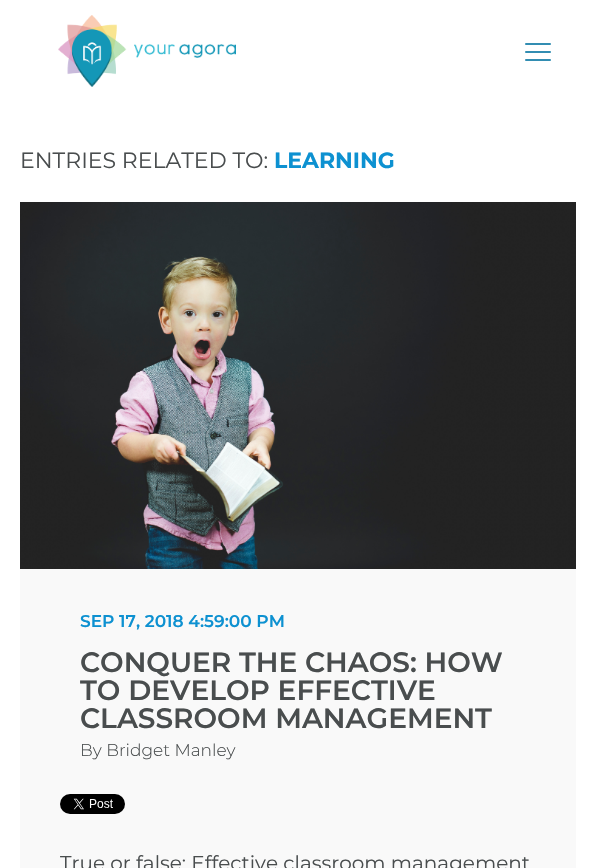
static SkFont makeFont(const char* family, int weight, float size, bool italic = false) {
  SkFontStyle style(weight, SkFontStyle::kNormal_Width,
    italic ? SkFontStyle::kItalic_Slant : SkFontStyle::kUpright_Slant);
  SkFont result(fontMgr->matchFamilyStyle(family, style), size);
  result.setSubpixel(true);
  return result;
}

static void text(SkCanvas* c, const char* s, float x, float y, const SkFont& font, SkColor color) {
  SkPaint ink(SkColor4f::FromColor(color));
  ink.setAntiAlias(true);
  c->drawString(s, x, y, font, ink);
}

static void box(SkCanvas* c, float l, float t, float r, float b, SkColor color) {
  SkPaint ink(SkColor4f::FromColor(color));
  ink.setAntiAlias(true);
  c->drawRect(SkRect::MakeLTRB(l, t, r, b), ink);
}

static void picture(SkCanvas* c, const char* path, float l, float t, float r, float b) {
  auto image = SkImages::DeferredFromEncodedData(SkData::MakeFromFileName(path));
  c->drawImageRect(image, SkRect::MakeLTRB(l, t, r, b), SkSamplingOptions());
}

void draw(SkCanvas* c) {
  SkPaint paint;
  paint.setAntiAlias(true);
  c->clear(0xffffffff);
  picture(c, "img_01.png", 58, 15, 236, 87);
  picture(c, "img_02.png", 525, 43, 551, 61);
  SkFont face1 = makeFont("Montserrat", 400, 22);
  text(c, "ENTRIES RELATED TO:", 20, 168, face1, 0xff494d4e);
  SkFont face2 = makeFont("Montserrat", 700, 22);
  text(c, "LEARNING", 274, 168, face2, 0xff0d91d1);
  box(c, 20, 569, 576, 868, 0xfff9f9f9);
  picture(c, "img_03.png", 20, 202, 576, 569);
  SkFont face3 = makeFont("Montserrat", 600, 17);
  text(c, "SEP 17, 2018 4:59:00 PM", 80, 627, face3, 0xff0d91d1);
  SkFont face4 = makeFont("Montserrat", 600, 28);
  text(c, "CONQUER THE CHAOS: HOW", 80, 672, face4, 0xff494d4e);
  text(c, "TO DEVELOP EFFECTIVE", 80, 700, face4, 0xff494d4e);
  text(c, "CLASSROOM MANAGEMENT", 80, 728, face4, 0xff494d4e);
  SkFont face5 = makeFont("Montserrat", 300, 17);
  text(c, "By Bridget Manley", 80, 756, face5, 0xff494d4e);
  picture(c, "img_04.png", 60, 794, 125, 814);
  SkFont face6 = makeFont("Montserrat", 400, 20);
  text(c, "True or false: Effective classroom management", 60, 870, face6, 0xff494d4e);
}
